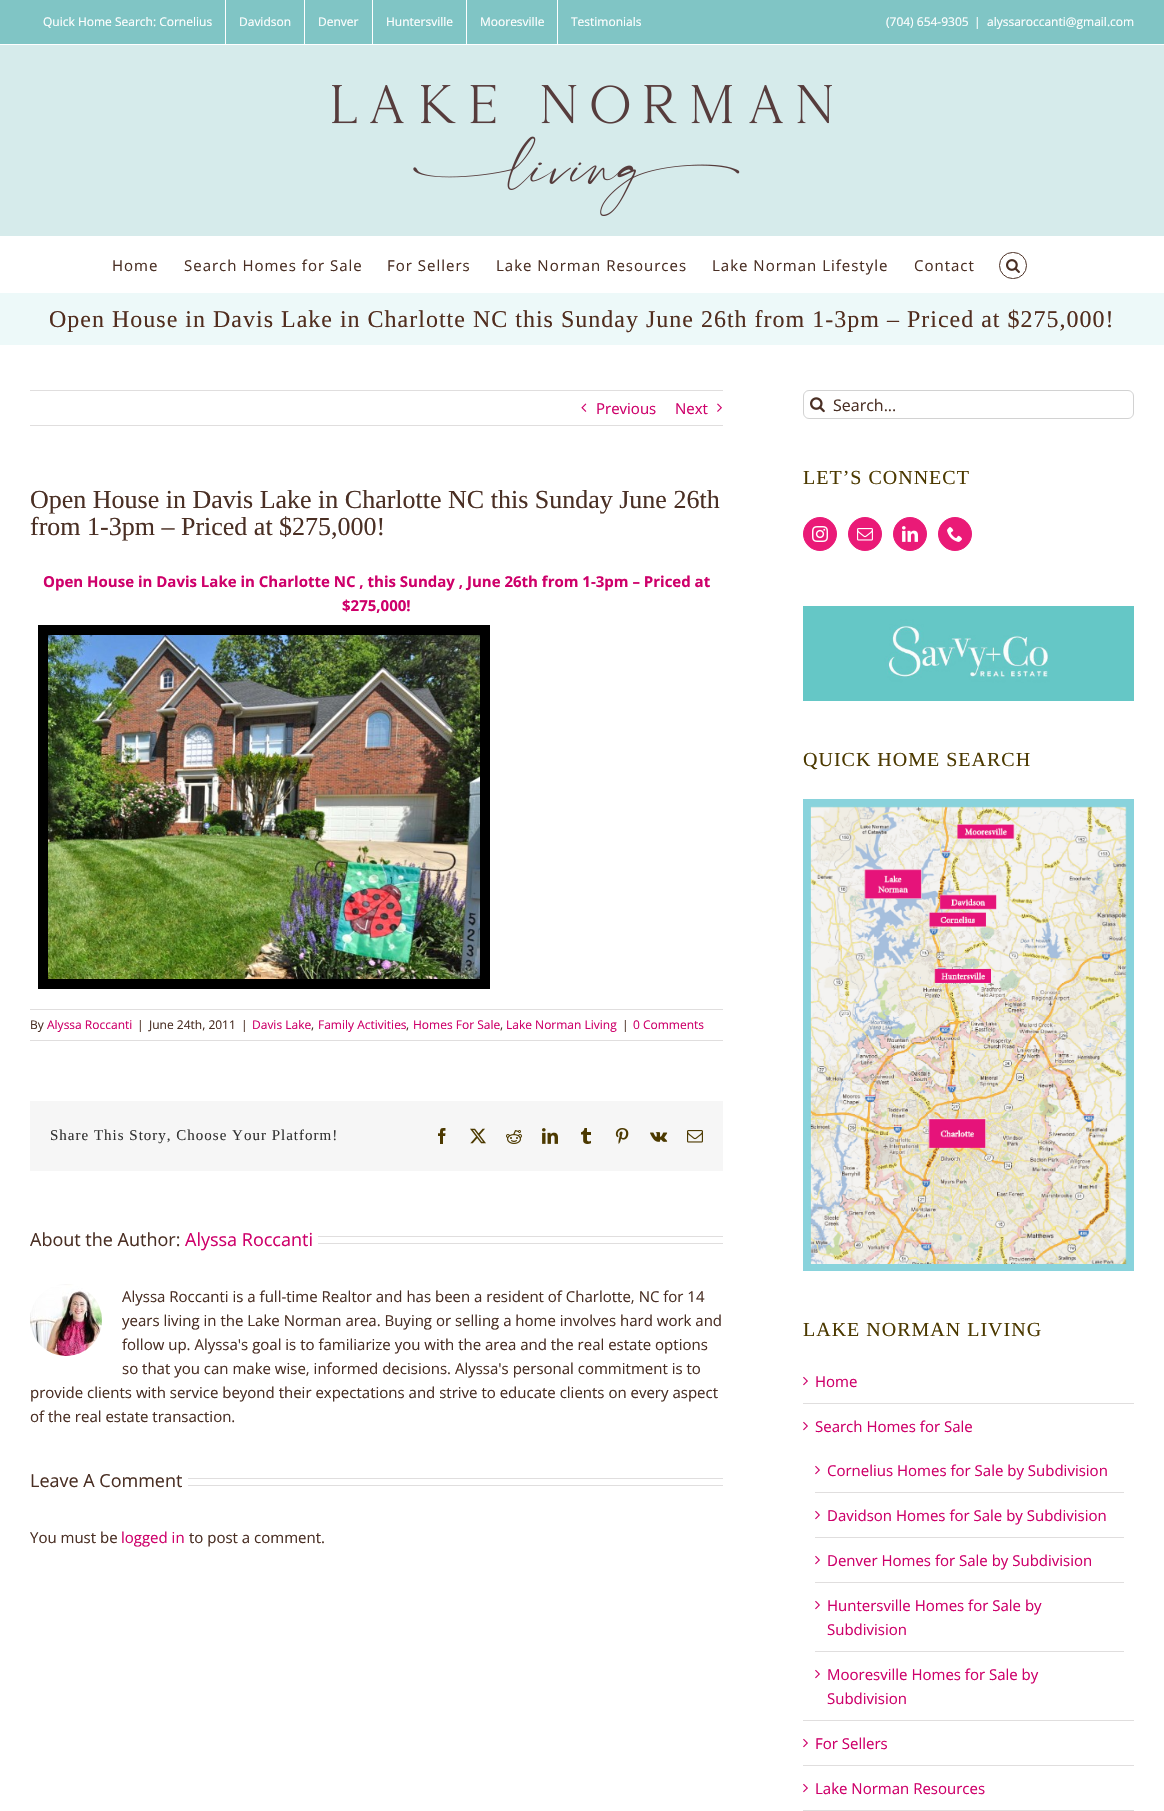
static SkFont makeFont(const char* family, int weight, float size, bool italic = false) {
  SkFontStyle style(weight, SkFontStyle::kNormal_Width,
    italic ? SkFontStyle::kItalic_Slant : SkFontStyle::kUpright_Slant);
  SkFont result(fontMgr->matchFamilyStyle(family, style), size);
  result.setSubpixel(true);
  return result;
}

static void text(SkCanvas* c, const char* s, float x, float y, const SkFont& font, SkColor color) {
  SkPaint ink(SkColor4f::FromColor(color));
  ink.setAntiAlias(true);
  c->drawString(s, x, y, font, ink);
}

static void spacedText(SkCanvas* c, const char* s, float x, float y, const SkFont& font, const SkPaint& ink, float letter, float word) {
  std::vector<SkGlyphID> glyphs(font.countText(s, strlen(s), SkTextEncoding::kUTF8));
  std::vector<float> xs(glyphs.size());
  font.textToGlyphs(s, strlen(s), SkTextEncoding::kUTF8, glyphs);
  font.getXPos(glyphs, xs, x);
  float extra = 0;
  for (size_t i = 0; i < glyphs.size(); i++) {
    xs[i] += extra;
    extra += letter + word * (glyphs[i] == font.unicharToGlyph(' '));
  }
  c->drawTextBlob(SkTextBlob::MakeFromPosHGlyphs(glyphs, xs, y, font), 0, 0, ink);
}

static void box(SkCanvas* c, float l, float t, float r, float b, SkColor color) {
  SkPaint ink(SkColor4f::FromColor(color));
  ink.setAntiAlias(true);
  c->drawRect(SkRect::MakeLTRB(l, t, r, b), ink);
}

static void picture(SkCanvas* c, const char* path, float l, float t, float r, float b) {
  auto image = SkImages::DeferredFromEncodedData(SkData::MakeFromFileName(path));
  c->drawImageRect(image, SkRect::MakeLTRB(l, t, r, b), SkSamplingOptions());
}

void draw(SkCanvas* c) {
  SkPaint paint;
  paint.setAntiAlias(true);
  c->clear(0xffffffff);
  box(c, 0, 0, 1164, 44, 0xff80c5c5);
  SkFont face1 = makeFont("Open Sans", 400, 12);
  text(c, "Quick Home Search: Cornelius", 43, 26, face1, 0xffffffff);
  box(c, 225, 0, 226, 44, 0xffffffff);
  text(c, "Davidson", 239, 26, face1, 0xffffffff);
  box(c, 304, 0, 305, 44, 0xffffffff);
  text(c, "Denver", 318, 26, face1, 0xffffffff);
  box(c, 372, 0, 373, 44, 0xffffffff);
  text(c, "Huntersville", 386, 26, face1, 0xffffffff);
  box(c, 466, 0, 467, 44, 0xffffffff);
  text(c, "Mooresville", 480, 26, face1, 0xffffffff);
  box(c, 557, 0, 558, 44, 0xffffffff);
  text(c, "Testimonials", 571, 26, face1, 0xffffffff);
  text(c, "(704) 654-9305", 886, 26, face1, 0xffffffff);
  text(c, "|", 974, 26, face1, 0xffffffff);
  text(c, "alyssaroccanti@gmail.com", 987, 26, face1, 0xffffffff);
  box(c, 0, 45, 1164, 236, 0xffd6ebeb);
  picture(c, "img_01.png", 332, 85, 832, 216);
  SkFont face2 = makeFont("Open Sans", 400, 15);
  paint.setColor(0xff4a2f24);
  spacedText(c, "Home", 112, 271, face2, paint, 1, 0);
  spacedText(c, "Search Homes for Sale", 184, 271, face2, paint, 1, 0);
  spacedText(c, "For Sellers", 387, 271, face2, paint, 1, 0);
  spacedText(c, "Lake Norman Resources", 496, 271, face2, paint, 1, 0);
  spacedText(c, "Lake Norman Lifestyle", 712, 271, face2, paint, 1, 0);
  spacedText(c, "Contact", 914, 271, face2, paint, 1, 0);
  paint.setStyle(SkPaint::kStroke_Style);
  paint.setStrokeWidth(1);
  c->drawRoundRect(SkRect::MakeLTRB(999.5f, 252.5f, 1026.5f, 278.5f), 13, 13, paint);
  picture(c, "img_02.png", 1006, 259, 1020, 273);
  box(c, 0, 293, 1164, 345, 0xffedf9f9);
  SkFont face3 = makeFont("Liberation Serif", 400, 24);
  paint.setStyle(SkPaint::kFill_Style);
  paint.setColor(0xff512d1e);
  spacedText(c, "Open House in Davis Lake in Charlotte NC this Sunday June 26th from 1-3pm – Priced at $275,000!", 49, 327, face3, paint, 1, 0);
  box(c, 30, 390, 723, 391, 0xffe0dede);
  box(c, 30, 425, 723, 426, 0xffe0dede);
  picture(c, "img_03.png", 581, 403, 587, 412);
  text(c, "Previous", 596, 414, face2, 0xffce006a);
  text(c, "Next", 675, 414, face2, 0xffce006a);
  picture(c, "img_04.png", 717, 403, 722, 412);
  SkFont face4 = makeFont("Liberation Serif", 400, 26);
  text(c, "Open House in Davis Lake in Charlotte NC this Sunday June 26th", 30, 508, face4, 0xff4a2f24);
  text(c, "from 1-3pm – Priced at $275,000!", 30, 535, face4, 0xff4a2f24);
  SkFont face5 = makeFont("Open Sans", 700, 15);
  text(c, "Open House in Davis Lake in Charlotte NC , this Sunday , June 26th from 1-3pm – Priced at", 43, 587, face5, 0xffce006a);
  text(c, "$275,000!", 342, 611, face5, 0xffce006a);
  paint.setStyle(SkPaint::kStroke_Style);
  paint.setStrokeWidth(10);
  paint.setColor(0xff000000);
  c->drawRect(SkRect::MakeLTRB(43, 630, 485, 984), paint);
  picture(c, "img_05.png", 48, 635, 480, 979);
  box(c, 30, 1009, 723, 1010, 0xffe0dede);
  box(c, 30, 1040, 723, 1041, 0xffe0dede);
  text(c, "By", 30, 1029, face1, 0xff4a2f24);
  text(c, "Alyssa Roccanti", 47, 1029, face1, 0xffce006a);
  text(c, "|", 137, 1029, face1, 0xff4a2f24);
  text(c, "June 24th, 2011", 149, 1029, face1, 0xff4a2f24);
  text(c, "|", 241, 1029, face1, 0xff4a2f24);
  text(c, "Davis Lake", 252, 1029, face1, 0xffce006a);
  text(c, ",", 311, 1029, face1, 0xff4a2f24);
  text(c, "Family Activities", 318, 1029, face1, 0xffce006a);
  text(c, ",", 406, 1029, face1, 0xff4a2f24);
  text(c, "Homes For Sale", 413, 1029, face1, 0xffce006a);
  text(c, ",", 500, 1029, face1, 0xff4a2f24);
  text(c, "Lake Norman Living", 506, 1029, face1, 0xffce006a);
  text(c, "|", 622, 1029, face1, 0xff4a2f24);
  text(c, "0 Comments", 633, 1029, face1, 0xffce006a);
  box(c, 30, 1101, 723, 1171, 0xfff6f6f6);
  SkFont face6 = makeFont("Liberation Serif", 400, 15);
  paint.setStyle(SkPaint::kFill_Style);
  paint.setColor(0xff333333);
  spacedText(c, "Share This Story, Choose Your Platform!", 50, 1140, face6, paint, 1, 0);
  picture(c, "img_06.png", 438, 1128, 446, 1144);
  picture(c, "img_07.png", 470, 1128, 486, 1144);
  picture(c, "img_08.png", 506, 1130, 522, 1144);
  picture(c, "img_09.png", 542, 1128, 558, 1144);
  picture(c, "img_10.png", 581, 1128, 591, 1144);
  picture(c, "img_11.png", 615, 1128, 629, 1144);
  picture(c, "img_12.png", 650, 1132, 668, 1142);
  picture(c, "img_13.png", 687, 1130, 703, 1143);
  SkFont face7 = makeFont("Open Sans", 400, 18);
  text(c, "About the Author:", 30, 1246, face7, 0xff4a2f24);
  text(c, "Alyssa Roccanti", 185, 1246, face7, 0xffce006a);
  box(c, 318, 1236, 723, 1237, 0xffe0dede);
  box(c, 318, 1243, 723, 1244, 0xffe0dede);
  picture(c, "img_14.png", 30, 1284, 102, 1356);
  text(c, "Alyssa Roccanti is a full-time Realtor and has been a resident of Charlotte, NC for 14", 122, 1302, face2, 0xff4a2f24);
  text(c, "years living in the Lake Norman area. Buying or selling a home involves hard work and", 122, 1326, face2, 0xff4a2f24);
  text(c, "follow up. Alyssa's goal is to familiarize you with the area and the real estate options", 122, 1350, face2, 0xff4a2f24);
  text(c, "so that you can make wise, informed decisions. Alyssa's personal commitment is to", 122, 1374, face2, 0xff4a2f24);
  text(c, "provide clients with service beyond their expectations and strive to educate clients on every aspect", 30, 1398, face2, 0xff4a2f24);
  text(c, "of the real estate transaction.", 30, 1422, face2, 0xff4a2f24);
  text(c, "Leave A Comment", 30, 1487, face7, 0xff4a2f24);
  box(c, 188, 1478, 723, 1479, 0xffe0dede);
  box(c, 188, 1485, 723, 1486, 0xffe0dede);
  text(c, "You must be", 30, 1543, face2, 0xff4a2f24);
  text(c, "logged in", 121, 1543, face2, 0xffce006a);
  text(c, "to post a comment.", 189, 1543, face2, 0xff4a2f24);
  paint.setStyle(SkPaint::kStroke_Style);
  paint.setStrokeWidth(1);
  paint.setColor(0xffd2d2d2);
  c->drawRoundRect(SkRect::MakeLTRB(803.5f, 390.5f, 1133.5f, 418.5f), 5.5f, 5.5f, paint);
  picture(c, "img_15.png", 810, 397, 825, 413);
  SkFont face8 = makeFont("Open Sans", 400, 16);
  text(c, "Search...", 833, 411, face8, 0xff4a2f24);
  SkFont face9 = makeFont("Liberation Serif", 400, 20);
  paint.setStyle(SkPaint::kFill_Style);
  paint.setColor(0xff4c3900);
  spacedText(c, "LET’S CONNECT", 803, 484, face9, paint, 1, 0);
  paint.setColor(0xffea1a77);
  c->drawCircle(820, 534, 16.5f, paint);
  paint.setStyle(SkPaint::kStroke_Style);
  c->drawCircle(820, 534, 16.5f, paint);
  picture(c, "img_16.png", 812, 526, 828, 542);
  paint.setStyle(SkPaint::kFill_Style);
  c->drawCircle(865, 534, 16.5f, paint);
  paint.setStyle(SkPaint::kStroke_Style);
  c->drawCircle(865, 534, 16.5f, paint);
  picture(c, "img_17.png", 857, 528, 873, 541);
  paint.setStyle(SkPaint::kFill_Style);
  c->drawCircle(910, 534, 16.5f, paint);
  paint.setStyle(SkPaint::kStroke_Style);
  c->drawCircle(910, 534, 16.5f, paint);
  picture(c, "img_18.png", 902, 526, 918, 542);
  paint.setStyle(SkPaint::kFill_Style);
  c->drawCircle(955, 534, 16.5f, paint);
  paint.setStyle(SkPaint::kStroke_Style);
  c->drawCircle(955, 534, 16.5f, paint);
  picture(c, "img_19.png", 947, 527, 962, 542);
  picture(c, "img_20.png", 803, 606, 1134, 701);
  paint.setStyle(SkPaint::kFill_Style);
  paint.setColor(0xff4c3900);
  spacedText(c, "QUICK HOME SEARCH", 803, 766, face9, paint, 1, 0);
  picture(c, "img_21.png", 803, 799, 1134, 1271);
  spacedText(c, "LAKE NORMAN LIVING", 803, 1336, face9, paint, 1, 0);
  box(c, 803, 1403, 1134, 1404, 0xffe0dede);
  picture(c, "img_22.png", 803, 1376, 808, 1386);
  text(c, "Home", 815, 1387, face2, 0xffce006a);
  box(c, 803, 1720, 1134, 1721, 0xffe0dede);
  picture(c, "img_22.png", 803, 1421, 808, 1431);
  text(c, "Search Homes for Sale", 815, 1432, face2, 0xffce006a);
  box(c, 815, 1492, 1124, 1493, 0xffe0dede);
  picture(c, "img_22.png", 815, 1465, 820, 1475);
  text(c, "Cornelius Homes for Sale by Subdivision", 827, 1476, face2, 0xffce006a);
  box(c, 815, 1537, 1124, 1538, 0xffe0dede);
  picture(c, "img_22.png", 815, 1510, 820, 1520);
  text(c, "Davidson Homes for Sale by Subdivision", 827, 1521, face2, 0xffce006a);
  box(c, 815, 1582, 1124, 1583, 0xffe0dede);
  picture(c, "img_22.png", 815, 1555, 820, 1565);
  text(c, "Denver Homes for Sale by Subdivision", 827, 1566, face2, 0xffce006a);
  box(c, 815, 1651, 1124, 1652, 0xffe0dede);
  picture(c, "img_22.png", 815, 1600, 820, 1610);
  text(c, "Huntersville Homes for Sale by", 827, 1611, face2, 0xffce006a);
  text(c, "Subdivision", 827, 1635, face2, 0xffce006a);
  picture(c, "img_22.png", 815, 1669, 820, 1679);
  text(c, "Mooresville Homes for Sale by", 827, 1680, face2, 0xffce006a);
  text(c, "Subdivision", 827, 1704, face2, 0xffce006a);
  box(c, 803, 1765, 1134, 1766, 0xffe0dede);
  picture(c, "img_22.png", 803, 1738, 808, 1748);
  text(c, "For Sellers", 815, 1749, face2, 0xffce006a);
  box(c, 803, 1810, 1134, 1811, 0xffe0dede);
  picture(c, "img_22.png", 803, 1783, 808, 1793);
  text(c, "Lake Norman Resources", 815, 1794, face2, 0xffce006a);
}
